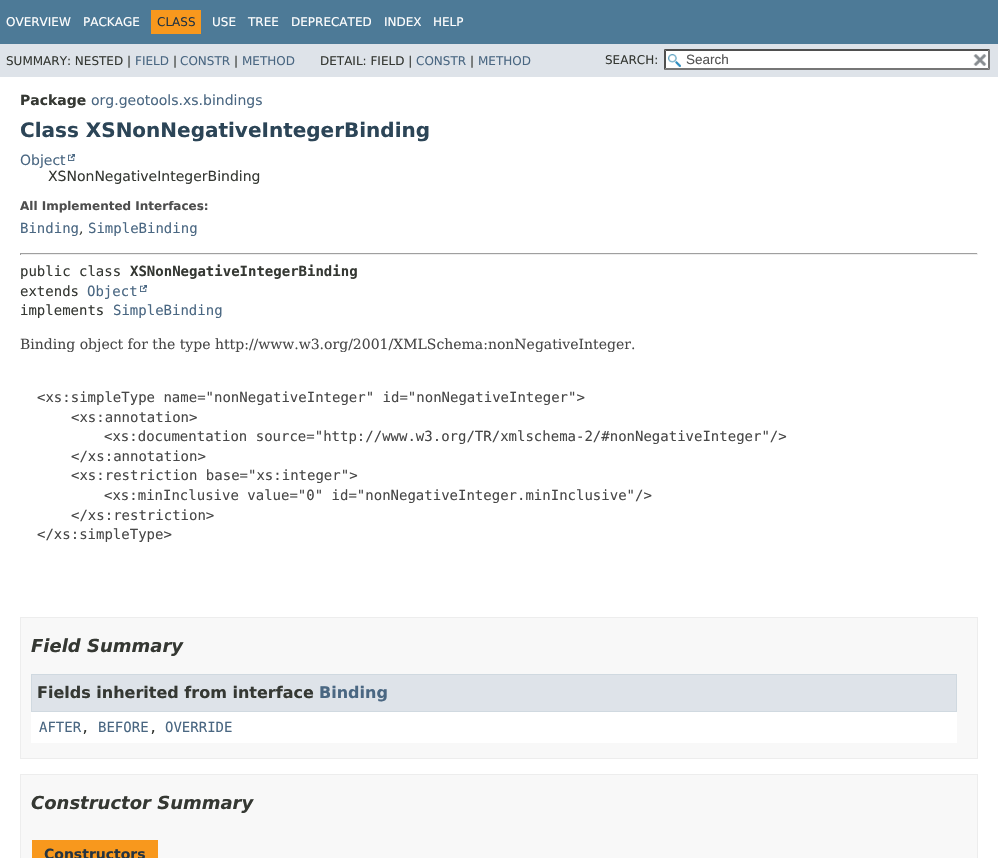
static SkFont makeFont(const char* family, int weight, float size, bool italic = false) {
  SkFontStyle style(weight, SkFontStyle::kNormal_Width,
    italic ? SkFontStyle::kItalic_Slant : SkFontStyle::kUpright_Slant);
  SkFont result(fontMgr->matchFamilyStyle(family, style), size);
  result.setSubpixel(true);
  return result;
}

static void text(SkCanvas* c, const char* s, float x, float y, const SkFont& font, SkColor color) {
  SkPaint ink(SkColor4f::FromColor(color));
  ink.setAntiAlias(true);
  c->drawString(s, x, y, font, ink);
}

static void box(SkCanvas* c, float l, float t, float r, float b, SkColor color) {
  SkPaint ink(SkColor4f::FromColor(color));
  ink.setAntiAlias(true);
  c->drawRect(SkRect::MakeLTRB(l, t, r, b), ink);
}

static void picture(SkCanvas* c, const char* path, float l, float t, float r, float b) {
  auto image = SkImages::DeferredFromEncodedData(SkData::MakeFromFileName(path));
  c->drawImageRect(image, SkRect::MakeLTRB(l, t, r, b), SkSamplingOptions());
}

void draw(SkCanvas* c) {
  SkPaint paint;
  paint.setAntiAlias(true);
  c->clear(0xffffffff);
  box(c, 0, 0, 998, 44, 0xff4d7a97);
  SkFont face1 = makeFont("DejaVu Sans", 400, 12);
  text(c, "OVERVIEW", 6, 26, face1, 0xffffffff);
  text(c, "PACKAGE", 83, 26, face1, 0xffffffff);
  box(c, 151, 10, 201, 34, 0xfff8981d);
  text(c, "CLASS", 157, 26, face1, 0xff253441);
  text(c, "USE", 212, 26, face1, 0xffffffff);
  text(c, "TREE", 248, 26, face1, 0xffffffff);
  text(c, "DEPRECATED", 291, 26, face1, 0xffffffff);
  text(c, "INDEX", 384, 26, face1, 0xffffffff);
  text(c, "HELP", 433, 26, face1, 0xffffffff);
  box(c, 0, 44, 998, 77, 0xffdee3e9);
  text(c, "SUMMARY: NESTED |", 6, 65, face1, 0xff353833);
  text(c, "FIELD", 135, 65, face1, 0xff4a6782);
  text(c, "|", 173, 65, face1, 0xff353833);
  text(c, "CONSTR", 180, 65, face1, 0xff4a6782);
  text(c, "|", 234, 65, face1, 0xff353833);
  text(c, "METHOD", 242, 65, face1, 0xff4a6782);
  text(c, "DETAIL: FIELD |", 320, 65, face1, 0xff353833);
  text(c, "CONSTR", 416, 65, face1, 0xff4a6782);
  text(c, "|", 470, 65, face1, 0xff353833);
  text(c, "METHOD", 478, 65, face1, 0xff4a6782);
  text(c, "SEARCH:", 605, 64, face1, 0xff353833);
  box(c, 664, 49, 990, 70, 0xffffffff);
  picture(c, "img_01.png", 668, 54, 681, 67);
  paint.setColor(0xff4f4f4f);
  c->drawPath(SkPathBuilder().moveTo(664, 49).lineTo(990, 49).lineTo(988, 51).lineTo(666, 51).close().detach(), paint);
  paint.setColor(0xff767676);
  c->drawPath(SkPathBuilder().moveTo(990, 49).lineTo(990, 70).lineTo(988, 68).lineTo(988, 51).close().detach(), paint);
  c->drawPath(SkPathBuilder().moveTo(990, 70).lineTo(664, 70).lineTo(666, 68).lineTo(988, 68).close().detach(), paint);
  paint.setColor(0xff4f4f4f);
  c->drawPath(SkPathBuilder().moveTo(664, 70).lineTo(664, 49).lineTo(666, 51).lineTo(666, 68).close().detach(), paint);
  SkFont face2 = makeFont("Liberation Sans", 400, 13.5f);
  text(c, "Search", 686, 64, face2, 0xff545454);
  picture(c, "img_02.png", 973, 54, 987, 66);
  SkFont face3 = makeFont("DejaVu Sans", 700, 14);
  text(c, "Package", 20, 105, face3, 0xff353833);
  SkFont face4 = makeFont("DejaVu Sans", 400, 14);
  text(c, "org.geotools.xs.bindings", 91, 105, face4, 0xff4a6782);
  SkFont face5 = makeFont("DejaVu Sans", 700, 20);
  text(c, "Class XSNonNegativeIntegerBinding", 20, 137, face5, 0xff2c4557);
  text(c, "Object", 20, 165, face4, 0xff4a6782);
  picture(c, "img_03.png", 68, 154, 75, 161);
  text(c, "XSNonNegativeIntegerBinding", 48, 181, face4, 0xff353833);
  SkFont face6 = makeFont("DejaVu Sans", 700, 12);
  text(c, "All Implemented Interfaces:", 20, 210, face6, 0xff4e4e4e);
  SkFont face7 = makeFont("DejaVu Sans Mono", 400, 14);
  text(c, "Binding", 20, 233, face7, 0xff4a6782);
  SkFont face8 = makeFont("DejaVu Serif", 400, 14);
  text(c, ",", 79, 233, face8, 0xff353833);
  text(c, "SimpleBinding", 88, 233, face7, 0xff4a6782);
  box(c, 20, 253, 978, 254, 0xff9f9f9f);
  box(c, 977, 253, 978, 255, 0xffeeeeee);
  box(c, 20, 254, 978, 255, 0xffeeeeee);
  box(c, 20, 253, 21, 255, 0xff9f9f9f);
  text(c, "public class", 20, 276, face7, 0xff353833);
  SkFont face9 = makeFont("DejaVu Sans Mono", 700, 14);
  text(c, "XSNonNegativeIntegerBinding", 130, 276, face9, 0xff353833);
  text(c, "extends", 20, 296, face7, 0xff353833);
  text(c, "Object", 87, 296, face7, 0xff4a6782);
  picture(c, "img_03.png", 140, 285, 147, 292);
  text(c, "implements", 20, 315, face7, 0xff353833);
  text(c, "SimpleBinding", 113, 315, face7, 0xff4a6782);
  text(c, "Binding object for the type http://www.w3.org/2001/XMLSchema:nonNegativeInteger.", 20, 349, face8, 0xff474747);
  text(c, "<xs:simpleType name=\"nonNegativeInteger\" id=\"nonNegativeInteger\">", 37, 402, face7, 0xff474747);
  text(c, "<xs:annotation>", 71, 422, face7, 0xff474747);
  text(c, "<xs:documentation source=\"http://www.w3.org/TR/xmlschema-2/#nonNegativeInteger\"/>", 104, 441, face7, 0xff474747);
  text(c, "</xs:annotation>", 71, 461, face7, 0xff474747);
  text(c, "<xs:restriction base=\"xs:integer\">", 71, 480, face7, 0xff474747);
  text(c, "<xs:minInclusive value=\"0\" id=\"nonNegativeInteger.minInclusive\"/>", 104, 500, face7, 0xff474747);
  text(c, "</xs:restriction>", 71, 520, face7, 0xff474747);
  text(c, "</xs:simpleType>", 37, 539, face7, 0xff474747);
  paint.setColor(0xfff8f8f8);
  c->drawRect(SkRect::MakeLTRB(20.5f, 617.5f, 977.5f, 758.5f), paint);
  paint.setStyle(SkPaint::kStroke_Style);
  paint.setStrokeWidth(1);
  paint.setColor(0xffededed);
  c->drawRect(SkRect::MakeLTRB(20.5f, 617.5f, 977.5f, 758.5f), paint);
  SkFont face10 = makeFont("DejaVu Sans", 700, 18, true);
  text(c, "Field Summary", 31, 652, face10, 0xff353833);
  box(c, 31, 712, 957, 743, 0xffffffff);
  paint.setStyle(SkPaint::kFill_Style);
  paint.setColor(0xffdee3e9);
  c->drawRect(SkRect::MakeLTRB(31.5f, 674.5f, 956.5f, 711.5f), paint);
  paint.setStyle(SkPaint::kStroke_Style);
  paint.setColor(0xffd0d9e0);
  c->drawRect(SkRect::MakeLTRB(31.5f, 674.5f, 956.5f, 711.5f), paint);
  SkFont face11 = makeFont("DejaVu Sans", 700, 16);
  text(c, "Fields inherited from interface", 37, 698, face11, 0xff353833);
  text(c, "Binding", 319, 698, face11, 0xff4a6782);
  text(c, "AFTER", 39, 732, face7, 0xff4a6782);
  text(c, ",", 81, 732, face7, 0xff353833);
  text(c, "BEFORE", 98, 732, face7, 0xff4a6782);
  text(c, ",", 149, 732, face7, 0xff353833);
  text(c, "OVERRIDE", 165, 732, face7, 0xff4a6782);
  paint.setStyle(SkPaint::kFill_Style);
  paint.setColor(0xfff8f8f8);
  c->drawRect(SkRect::MakeLTRB(20.5f, 774.5f, 977.5f, 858.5f), paint);
  paint.setStyle(SkPaint::kStroke_Style);
  paint.setColor(0xffededed);
  c->drawRect(SkRect::MakeLTRB(20.5f, 774.5f, 977.5f, 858.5f), paint);
  text(c, "Constructor Summary", 31, 809, face10, 0xff353833);
  box(c, 32, 840, 158, 858, 0xfff8981d);
  text(c, "Constructors", 44, 859, face3, 0xff253441);
}
